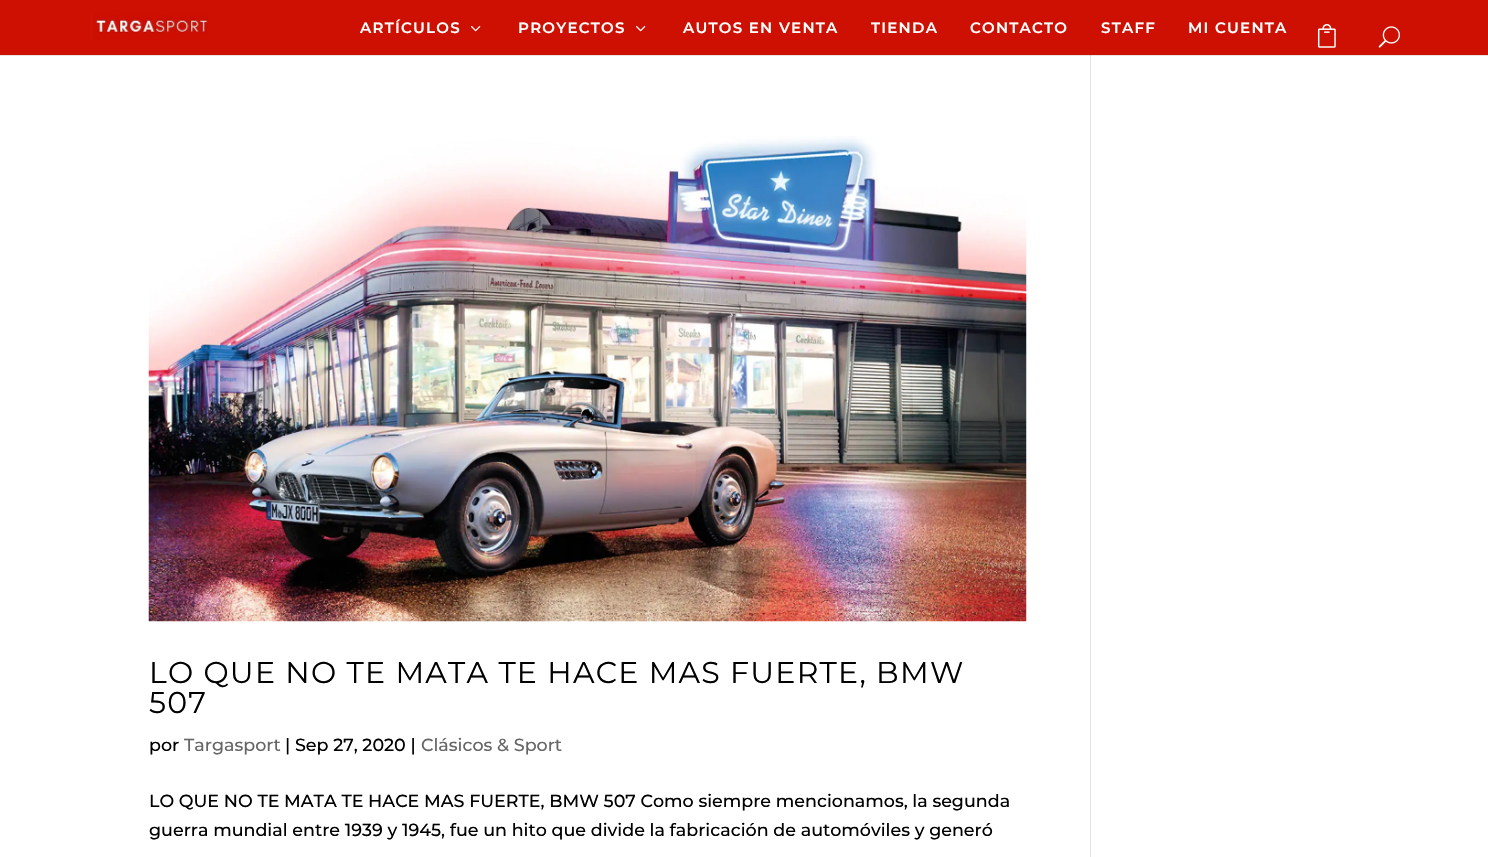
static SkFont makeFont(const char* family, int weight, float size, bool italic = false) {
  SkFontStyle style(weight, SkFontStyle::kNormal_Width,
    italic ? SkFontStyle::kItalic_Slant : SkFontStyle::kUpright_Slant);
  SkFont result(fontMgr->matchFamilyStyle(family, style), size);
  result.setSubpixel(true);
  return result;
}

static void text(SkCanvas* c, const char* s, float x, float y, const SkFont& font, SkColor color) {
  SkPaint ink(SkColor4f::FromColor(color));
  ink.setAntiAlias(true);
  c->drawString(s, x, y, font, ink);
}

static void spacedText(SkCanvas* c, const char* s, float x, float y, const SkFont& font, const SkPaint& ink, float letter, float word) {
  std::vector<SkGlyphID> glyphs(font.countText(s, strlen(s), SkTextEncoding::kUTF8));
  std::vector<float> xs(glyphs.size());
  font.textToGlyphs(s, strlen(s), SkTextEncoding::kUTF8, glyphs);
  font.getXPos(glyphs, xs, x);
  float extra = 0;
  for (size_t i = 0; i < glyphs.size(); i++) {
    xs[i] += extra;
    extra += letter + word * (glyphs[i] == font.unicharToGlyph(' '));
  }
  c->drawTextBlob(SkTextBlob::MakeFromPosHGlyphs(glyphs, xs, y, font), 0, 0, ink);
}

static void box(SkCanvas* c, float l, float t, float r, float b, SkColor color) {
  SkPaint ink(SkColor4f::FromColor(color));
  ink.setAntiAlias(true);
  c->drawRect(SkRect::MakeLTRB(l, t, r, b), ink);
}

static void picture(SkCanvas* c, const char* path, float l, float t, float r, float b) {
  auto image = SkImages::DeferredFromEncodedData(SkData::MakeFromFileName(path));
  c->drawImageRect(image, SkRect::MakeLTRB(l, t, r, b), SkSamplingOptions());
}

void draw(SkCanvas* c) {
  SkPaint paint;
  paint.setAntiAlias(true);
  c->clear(0xffffffff);
  box(c, 1090, 55, 1091, 857, 0xffe2e2e2);
  paint.setColor(0x1a000000);
  c->drawPath(SkPathBuilder().moveTo(0, 55).lineTo(0, 56).lineTo(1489, 56).lineTo(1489, 1).lineTo(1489, 55).close().detach(), paint);
  box(c, 0, 0, 1488, 55, 0xffcd1001);
  picture(c, "img_01.png", 91, 14, 208, 41);
  SkFont face1 = makeFont("Montserrat", 600, 15);
  paint.setColor(0xffffffff);
  spacedText(c, "ARTÍCULOS", 360, 33, face1, paint, 1.25f, 0);
  picture(c, "img_02.png", 471, 26, 481, 32);
  spacedText(c, "PROYECTOS", 518, 33, face1, paint, 1.25f, 0);
  picture(c, "img_02.png", 636, 26, 646, 32);
  spacedText(c, "AUTOS EN VENTA", 683, 33, face1, paint, 1.25f, 0);
  spacedText(c, "TIENDA", 871, 33, face1, paint, 1.25f, 0);
  spacedText(c, "CONTACTO", 970, 33, face1, paint, 1.25f, 0);
  spacedText(c, "STAFF", 1101, 33, face1, paint, 1.25f, 0);
  spacedText(c, "MI CUENTA", 1188, 33, face1, paint, 1.25f, 0);
  picture(c, "img_03.png", 1317, 24, 1336, 48);
  picture(c, "img_04.png", 1378, 26, 1400, 48);
  picture(c, "img_05.png", 148, 136, 1027, 622);
  SkFont face2 = makeFont("Montserrat", 400, 30);
  paint.setColor(0xff000000);
  spacedText(c, "LO QUE NO TE MATA TE HACE MAS FUERTE, BMW", 149, 683, face2, paint, 1.25f, 0);
  spacedText(c, "507", 149, 713, face2, paint, 1.25f, 0);
  SkFont face3 = makeFont("Montserrat", 500, 17.5f);
  text(c, "por", 149, 751, face3, 0xff000000);
  text(c, "Targasport", 184, 751, face3, 0xff666666);
  text(c, "| Sep 27, 2020 |", 285, 751, face3, 0xff000000);
  text(c, "Clásicos & Sport", 421, 751, face3, 0xff666666);
  text(c, "LO QUE NO TE MATA TE HACE MAS FUERTE, BMW 507 Como siempre mencionamos, la segunda", 149, 807, face3, 0xff000000);
  text(c, "guerra mundial entre 1939 y 1945, fue un hito que divide la fabricación de automóviles y generó", 149, 836, face3, 0xff000000);
}
